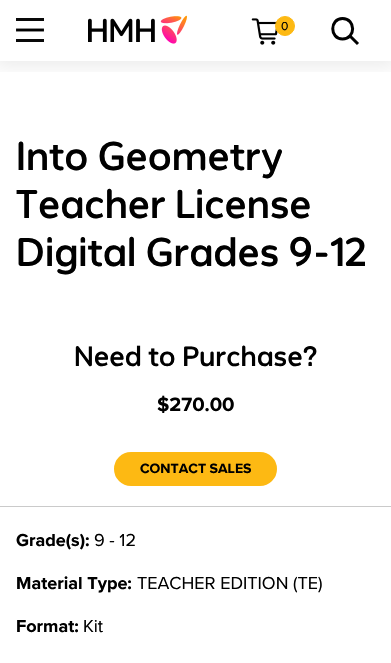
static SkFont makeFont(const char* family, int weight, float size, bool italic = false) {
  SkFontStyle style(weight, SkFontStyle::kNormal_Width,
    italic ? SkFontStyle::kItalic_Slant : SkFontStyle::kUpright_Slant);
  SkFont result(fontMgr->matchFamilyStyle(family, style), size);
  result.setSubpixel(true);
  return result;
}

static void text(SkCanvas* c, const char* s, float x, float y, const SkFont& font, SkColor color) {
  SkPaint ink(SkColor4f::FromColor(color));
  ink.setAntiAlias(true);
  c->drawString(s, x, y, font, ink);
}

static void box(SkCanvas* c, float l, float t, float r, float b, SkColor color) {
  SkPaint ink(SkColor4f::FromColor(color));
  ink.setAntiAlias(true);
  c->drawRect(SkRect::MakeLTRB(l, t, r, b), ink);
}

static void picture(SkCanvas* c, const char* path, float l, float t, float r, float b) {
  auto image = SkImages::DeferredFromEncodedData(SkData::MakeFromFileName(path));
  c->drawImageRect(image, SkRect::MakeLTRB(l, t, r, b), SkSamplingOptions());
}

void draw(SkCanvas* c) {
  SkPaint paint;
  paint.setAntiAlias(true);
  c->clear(0xffffffff);
  c->save();
  c->clipRect(SkRect::MakeLTRB(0, 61, 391, 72));
  paint.setColor(0x14000000);
  paint.setMaskFilter(SkMaskFilter::MakeBlur(kNormal_SkBlurStyle, 9));
  c->drawRect(SkRect::MakeLTRB(-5, -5, 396, 66), paint);
  paint.setMaskFilter(nullptr);
  c->restore();
  box(c, 16, 18, 44, 21, 0xff090909);
  box(c, 16, 39, 44, 42, 0xff090909);
  paint.setStyle(SkPaint::kStroke_Style);
  paint.setStrokeWidth(2.9f);
  paint.setStrokeCap(SkPaint::kSquare_Cap);
  paint.setColor(0xff000000);
  c->drawPath(SkPathBuilder().moveTo(17.5f, 30).lineTo(42.5f, 30).detach(), paint);
  picture(c, "img_01.png", 88, 15, 187, 44);
  picture(c, "img_02.png", 251, 18, 278, 45);
  paint.setStyle(SkPaint::kFill_Style);
  paint.setColor(0xfffdb913);
  c->drawCircle(285, 26, 9.5f, paint);
  paint.setStyle(SkPaint::kStroke_Style);
  paint.setStrokeWidth(1);
  paint.setStrokeCap(SkPaint::kButt_Cap);
  c->drawCircle(285, 26, 9.5f, paint);
  SkFont face1 = makeFont("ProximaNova", 400, 12);
  text(c, "0", 281, 30, face1, 0xff000000);
  paint.setStrokeWidth(3);
  paint.setStrokeCap(SkPaint::kRound_Cap);
  paint.setColor(0xff000000);
  c->drawPath(SkPathBuilder().moveTo(342.5f, 18.5f).cubicTo(329.5f, 18.5f, 329.5f, 39, 342.5f, 39).cubicTo(356, 39, 356, 18.5f, 342.5f, 18.5f).close().detach(), paint);
  paint.setStrokeCap(SkPaint::kButt_Cap);
  c->drawPath(SkPathBuilder().moveTo(349.5f, 35.5f).lineTo(358, 44).detach(), paint);
  SkFont face2 = makeFont("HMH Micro", 500, 40);
  text(c, "Into Geometry", 16, 170, face2, 0xff000000);
  text(c, "Teacher License", 16, 218, face2, 0xff000000);
  text(c, "Digital Grades 9-12", 16, 266, face2, 0xff000000);
  SkFont face3 = makeFont("HMH Micro", 500, 28);
  text(c, "Need to Purchase?", 74, 366, face3, 0xff000000);
  SkFont face4 = makeFont("ProximaNova", 700, 20);
  text(c, "$270.00", 157, 411, face4, 0xff000000);
  paint.setStyle(SkPaint::kFill_Style);
  paint.setColor(0xfffdb913);
  c->drawRoundRect(SkRect::MakeLTRB(115, 453, 276, 485), 16, 16, paint);
  paint.setStyle(SkPaint::kStroke_Style);
  paint.setStrokeWidth(2);
  c->drawRoundRect(SkRect::MakeLTRB(115, 453, 276, 485), 16, 16, paint);
  SkFont face5 = makeFont("ProximaNova", 700, 14);
  text(c, "CONTACT SALES", 140, 473, face5, 0xff000000);
  box(c, 0, 506, 391, 507, 0xffcacaca);
  SkFont face6 = makeFont("ProximaNova", 700, 18);
  text(c, "Grade(s):", 16, 546, face6, 0xff000000);
  SkFont face7 = makeFont("ProximaNova", 400, 18);
  text(c, "9 - 12", 94, 546, face7, 0xff000000);
  text(c, "Material Type:", 16, 589, face6, 0xff000000);
  text(c, "TEACHER EDITION (TE)", 137, 589, face7, 0xff000000);
  text(c, "Format:", 16, 632, face6, 0xff000000);
  text(c, "Kit", 83, 632, face7, 0xff000000);
}
